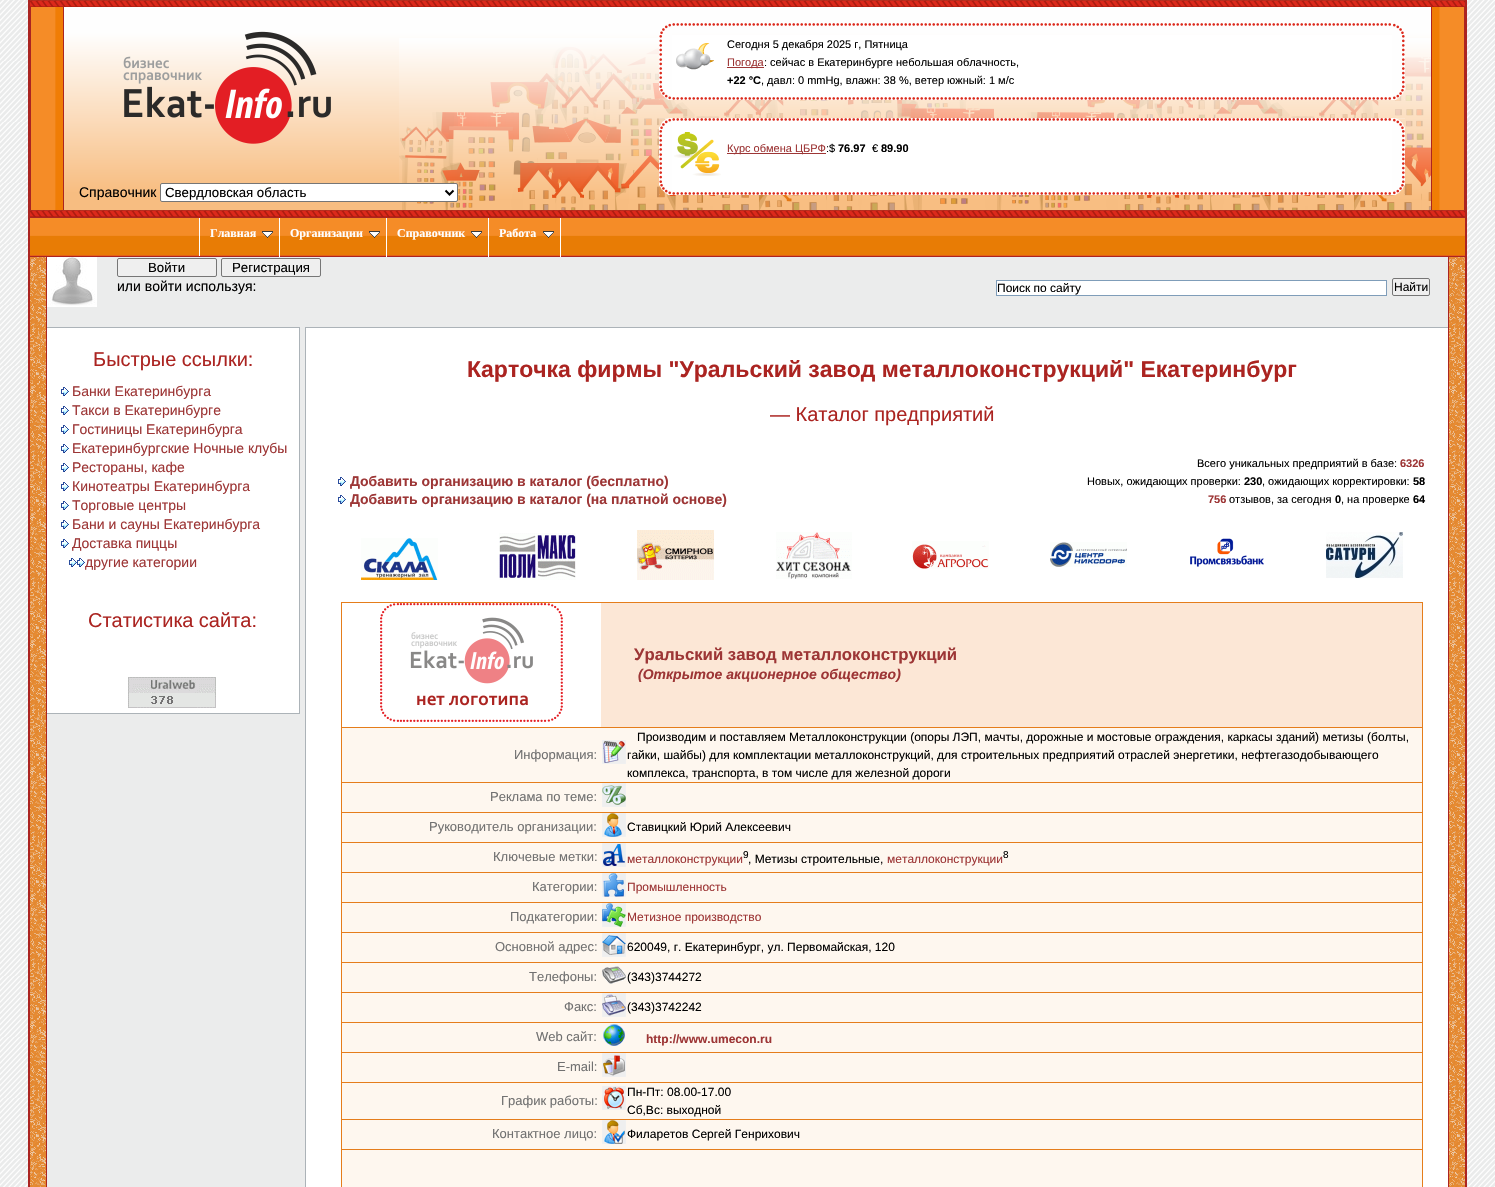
static SkFont makeFont(const char* family, int weight, float size, bool italic = false) {
  SkFontStyle style(weight, SkFontStyle::kNormal_Width,
    italic ? SkFontStyle::kItalic_Slant : SkFontStyle::kUpright_Slant);
  SkFont result(fontMgr->matchFamilyStyle(family, style), size);
  result.setSubpixel(true);
  return result;
}

static void text(SkCanvas* c, const char* s, float x, float y, const SkFont& font, SkColor color) {
  SkPaint ink(SkColor4f::FromColor(color));
  ink.setAntiAlias(true);
  c->drawString(s, x, y, font, ink);
}

static void box(SkCanvas* c, float l, float t, float r, float b, SkColor color) {
  SkPaint ink(SkColor4f::FromColor(color));
  ink.setAntiAlias(true);
  c->drawRect(SkRect::MakeLTRB(l, t, r, b), ink);
}

static void picture(SkCanvas* c, const char* path, float l, float t, float r, float b) {
  auto image = SkImages::DeferredFromEncodedData(SkData::MakeFromFileName(path));
  c->drawImageRect(image, SkRect::MakeLTRB(l, t, r, b), SkSamplingOptions());
}

void draw(SkCanvas* c) {
  SkPaint paint;
  paint.setAntiAlias(true);
  c->clear(0xffffffff);
  picture(c, "img_01.png", 0, 0, 1495, 1187);
  box(c, 1465, 0, 1467, 1187, 0xffab2421);
  box(c, 28, 0, 30, 1187, 0xffab2421);
  picture(c, "img_02.png", 64, 7, 1431, 210);
  picture(c, "img_03.png", 30, 0, 1465, 7);
  picture(c, "img_04.png", 31, 7, 63, 210);
  box(c, 63, 7, 64, 210, 0xffab2421);
  box(c, 30, 7, 31, 210, 0xffab2421);
  picture(c, "img_05.png", 399, 38, 1431, 210);
  picture(c, "img_06.png", 659, 23, 672, 100);
  picture(c, "img_07.png", 672, 23, 1391, 26);
  picture(c, "img_08.png", 1392, 23, 1405, 100);
  box(c, 672, 35, 1392, 97, 0xffffffff);
  picture(c, "img_09.png", 676, 43, 714, 70);
  SkFont face1 = makeFont("Liberation Sans", 400, 11);
  text(c, "Сегодня 5 декабря 2025 г, Пятница", 727, 48, face1, 0xff000000);
  box(c, 727, 67, 764, 68, 0xff9d3636);
  text(c, "Погода", 727, 66, face1, 0xff9d3636);
  text(c, ": сейчас в Екатеринбурге небольшая облачность,", 764, 66, face1, 0xff000000);
  SkFont face2 = makeFont("Liberation Sans", 700, 11);
  text(c, "+22 °C", 727, 84, face2, 0xff000000);
  text(c, ", давл: 0 mmHg, влажн: 38 %, ветер южный: 1 м/с", 761, 84, face1, 0xff000000);
  picture(c, "img_10.png", 672, 97, 1392, 100);
  picture(c, "img_11.png", 659, 118, 672, 195);
  picture(c, "img_10.png", 672, 118, 1392, 121);
  picture(c, "img_12.png", 1392, 118, 1405, 195);
  box(c, 672, 121, 1392, 192, 0xffffffff);
  picture(c, "img_13.png", 674, 132, 721, 176);
  box(c, 727, 153, 826, 154, 0xff9d3636);
  text(c, "Курс обмена ЦБРФ", 727, 152, face1, 0xff9d3636);
  text(c, ":$", 826, 152, face1, 0xff000000);
  text(c, "76.97", 838, 152, face2, 0xff000000);
  text(c, "€", 872, 152, face1, 0xff000000);
  text(c, "89.90", 881, 152, face2, 0xff000000);
  picture(c, "img_10.png", 672, 192, 1392, 195);
  picture(c, "img_14.png", 1432, 7, 1464, 210);
  box(c, 1464, 7, 1465, 210, 0xffab2421);
  box(c, 1431, 7, 1432, 210, 0xffab2421);
  picture(c, "img_15.png", 123, 31, 331, 144);
  SkFont face3 = makeFont("Liberation Sans", 400, 14);
  text(c, "Справочник", 79, 197, face3, 0xff000000);
  paint.setColor(0xffffffff);
  c->drawRoundRect(SkRect::MakeLTRB(160.5f, 183.5f, 457.5f, 201.5f), 1.5f, 1.5f, paint);
  paint.setStyle(SkPaint::kStroke_Style);
  paint.setStrokeWidth(1);
  paint.setColor(0xff767676);
  c->drawRoundRect(SkRect::MakeLTRB(160.5f, 183.5f, 457.5f, 201.5f), 1.5f, 1.5f, paint);
  paint.setStrokeWidth(2);
  paint.setColor(0xff000000);
  c->drawPath(SkPathBuilder().moveTo(445.5f, 190.5f).lineTo(449.5f, 194.5f).lineTo(453.5f, 190.5f).detach(), paint);
  SkFont face4 = makeFont("Liberation Sans", 400, 13.25f);
  text(c, "Свердловская область", 165, 197, face4, 0xff000000);
  picture(c, "img_03.png", 30, 210, 1465, 217);
  box(c, 30, 217, 1465, 218, 0xffab2421);
  box(c, 30, 256, 1465, 257, 0xffab2421);
  picture(c, "img_16.png", 30, 218, 1465, 256);
  box(c, 199, 218, 200, 256, 0xffffffff);
  box(c, 279, 218, 280, 257, 0xffffffff);
  SkFont face5 = makeFont("Liberation Serif", 700, 12);
  text(c, "Главная", 210, 237, face5, 0xffffffff);
  picture(c, "img_17.png", 262, 231, 273, 238);
  box(c, 386, 218, 387, 257, 0xffffffff);
  text(c, "Организации", 290, 237, face5, 0xffffffff);
  picture(c, "img_17.png", 369, 231, 380, 238);
  box(c, 488, 218, 489, 257, 0xffffffff);
  text(c, "Справочник", 397, 237, face5, 0xffffffff);
  picture(c, "img_17.png", 471, 231, 482, 238);
  box(c, 560, 218, 561, 257, 0xffffffff);
  text(c, "Работа", 499, 237, face5, 0xffffffff);
  picture(c, "img_17.png", 543, 231, 554, 238);
  picture(c, "img_18.png", 30, 257, 1465, 1187);
  box(c, 47, 257, 1448, 1187, 0xffebecec);
  box(c, 1448, 257, 1449, 1187, 0xffab2421);
  box(c, 46, 257, 47, 1187, 0xffab2421);
  picture(c, "img_19.png", 47, 257, 97, 307);
  paint.setStyle(SkPaint::kFill_Style);
  paint.setColor(0xffefefef);
  c->drawRoundRect(SkRect::MakeLTRB(117.5f, 258.5f, 216.5f, 276.5f), 1.5f, 1.5f, paint);
  paint.setStyle(SkPaint::kStroke_Style);
  paint.setStrokeWidth(1);
  paint.setColor(0xff767676);
  c->drawRoundRect(SkRect::MakeLTRB(117.5f, 258.5f, 216.5f, 276.5f), 1.5f, 1.5f, paint);
  text(c, "Войти", 148, 272, face4, 0xff000000);
  paint.setStyle(SkPaint::kFill_Style);
  paint.setColor(0xffefefef);
  c->drawRoundRect(SkRect::MakeLTRB(221.5f, 258.5f, 320.5f, 276.5f), 1.5f, 1.5f, paint);
  paint.setStyle(SkPaint::kStroke_Style);
  paint.setColor(0xff767676);
  c->drawRoundRect(SkRect::MakeLTRB(221.5f, 258.5f, 320.5f, 276.5f), 1.5f, 1.5f, paint);
  text(c, "Регистрация", 232, 272, face4, 0xff000000);
  text(c, "или войти используя:", 117, 291, face3, 0xff000000);
  paint.setStyle(SkPaint::kFill_Style);
  paint.setColor(0xffffffff);
  c->drawRect(SkRect::MakeLTRB(996.5f, 280.5f, 1386.5f, 295.5f), paint);
  paint.setStyle(SkPaint::kStroke_Style);
  paint.setColor(0xff7f9db9);
  c->drawRect(SkRect::MakeLTRB(996.5f, 280.5f, 1386.5f, 295.5f), paint);
  SkFont face6 = makeFont("Liberation Sans", 400, 12);
  text(c, "Поиск по сайту", 997, 292, face6, 0xff000000);
  paint.setStyle(SkPaint::kFill_Style);
  paint.setColor(0xffefefef);
  c->drawRoundRect(SkRect::MakeLTRB(1392.5f, 278.5f, 1429.5f, 295.5f), 1.5f, 1.5f, paint);
  paint.setStyle(SkPaint::kStroke_Style);
  paint.setColor(0xff767676);
  c->drawRoundRect(SkRect::MakeLTRB(1392.5f, 278.5f, 1429.5f, 295.5f), 1.5f, 1.5f, paint);
  text(c, "Найти", 1394, 291, face6, 0xff000000);
  box(c, 47, 328, 299, 713, 0xffffffff);
  box(c, 47, 327, 300, 328, 0xffacb3b8);
  box(c, 299, 327, 300, 714, 0xffacb3b8);
  box(c, 47, 713, 300, 714, 0xffacb3b8);
  SkFont face7 = makeFont("Liberation Sans", 400, 20);
  text(c, "Быстрые ссылки:", 93, 366, face7, 0xffab2421);
  picture(c, "img_20.png", 61, 387, 69, 396);
  text(c, "Банки Екатеринбурга", 72, 396, face3, 0xff9d3636);
  picture(c, "img_20.png", 61, 406, 69, 415);
  text(c, "Такси в Екатеринбурге", 72, 415, face3, 0xff9d3636);
  picture(c, "img_20.png", 61, 425, 69, 434);
  text(c, "Гостиницы Екатеринбурга", 72, 434, face3, 0xff9d3636);
  picture(c, "img_20.png", 61, 444, 69, 453);
  text(c, "Екатеринбургcкие Ночные клубы", 72, 453, face3, 0xff9d3636);
  picture(c, "img_20.png", 61, 463, 69, 472);
  text(c, "Рестораны, кафе", 72, 472, face3, 0xff9d3636);
  picture(c, "img_20.png", 61, 482, 69, 491);
  text(c, "Кинотеатры Екатеринбурга", 72, 491, face3, 0xff9d3636);
  picture(c, "img_20.png", 61, 501, 69, 510);
  text(c, "Торговые центры", 72, 510, face3, 0xff9d3636);
  picture(c, "img_20.png", 61, 520, 69, 529);
  text(c, "Бани и сауны Екатеринбурга", 72, 529, face3, 0xff9d3636);
  picture(c, "img_20.png", 61, 539, 69, 548);
  text(c, "Доставка пиццы", 72, 548, face3, 0xff9d3636);
  picture(c, "img_20.png", 69, 558, 77, 567);
  picture(c, "img_20.png", 77, 558, 85, 567);
  text(c, "другие категории", 85, 567, face3, 0xff9d3636);
  text(c, "Статистика сайта:", 88, 627, face7, 0xffab2421);
  picture(c, "img_21.png", 128, 677, 216, 708);
  box(c, 306, 328, 1448, 1187, 0xffffffff);
  box(c, 305, 327, 1448, 328, 0xffacb3b8);
  box(c, 305, 327, 306, 1187, 0xffacb3b8);
  SkFont face8 = makeFont("Liberation Sans", 700, 23);
  text(c, "Карточка фирмы \"Уральский завод металлоконструкций\" Екатеринбург", 467, 377, face8, 0xffab2421);
  text(c, "— Каталог предприятий", 770, 421, face7, 0xffab2421);
  picture(c, "img_20.png", 338, 477, 346, 486);
  SkFont face9 = makeFont("Liberation Sans", 700, 14);
  text(c, "Добавить организацию в каталог (бесплатно)", 350, 486, face9, 0xff9d3636);
  picture(c, "img_20.png", 338, 495, 346, 504);
  text(c, "Добавить организацию в каталог (на платной основе)", 350, 504, face9, 0xff9d3636);
  text(c, "Всего уникальных предприятий в базе:", 1197, 467, face1, 0xff000000);
  text(c, "6326", 1400, 467, face2, 0xff9d3636);
  text(c, "Новых, ожидающих проверки:", 1087, 485, face1, 0xff000000);
  text(c, "230", 1244, 485, face2, 0xff000000);
  text(c, ", ожидающих корректировки:", 1262, 485, face1, 0xff000000);
  text(c, "58", 1413, 485, face2, 0xff000000);
  text(c, "756", 1208, 503, face2, 0xff9d3636);
  text(c, "отзывов, за сегодня", 1229, 503, face1, 0xff000000);
  text(c, "0", 1335, 503, face2, 0xff000000);
  text(c, ", на проверке", 1341, 503, face1, 0xff000000);
  text(c, "64", 1413, 503, face2, 0xff000000);
  picture(c, "img_22.png", 361, 538, 438, 580);
  picture(c, "img_23.png", 499, 533, 576, 580);
  picture(c, "img_24.png", 637, 530, 714, 580);
  picture(c, "img_25.png", 776, 532, 852, 579);
  picture(c, "img_26.png", 912, 541, 989, 569);
  picture(c, "img_27.png", 1050, 542, 1127, 567);
  picture(c, "img_28.png", 1190, 538, 1264, 567);
  picture(c, "img_29.png", 1326, 532, 1403, 579);
  box(c, 341, 602, 1423, 1187, 0xffe57d1b);
  box(c, 601, 603, 1422, 727, 0xfffce7d6);
  box(c, 342, 603, 601, 727, 0xffffffff);
  picture(c, "img_30.png", 380, 603, 563, 722);
  SkFont face10 = makeFont("Liberation Sans", 700, 16.75f);
  text(c, "Уральский завод металлоконструкций", 634, 660, face10, 0xff9d3636);
  SkFont face11 = makeFont("Liberation Sans", 700, 14, true);
  text(c, "(Открытое акционерное общество)", 638, 679, face11, 0xff9d3636);
  box(c, 342, 728, 1422, 782, 0xfffef7ef);
  SkFont face12 = makeFont("Liberation Sans", 400, 13);
  text(c, "Информация:", 514, 759, face12, 0xff717171);
  picture(c, "img_31.png", 602, 740, 626, 764);
  text(c, "Производим и поставляем Металлоконструкции (опоры ЛЭП, мачты, дорожные и мостовые ограждения, каркасы зданий) метизы (болты,", 637, 741, face6, 0xff000000);
  text(c, "гайки, шайбы) для комплектации металлоконструкций, для строительных предприятий отраслей энергетики, нефтегазодобывающего", 627, 759, face6, 0xff000000);
  text(c, "комплекса, транспорта, в том числе для железной дороги", 627, 777, face6, 0xff000000);
  box(c, 342, 783, 1422, 812, 0xfffef7ef);
  text(c, "Реклама по теме:", 490, 801, face12, 0xff717171);
  picture(c, "img_32.png", 602, 783, 626, 807);
  box(c, 342, 813, 1422, 842, 0xfffef7ef);
  text(c, "Руководитель организации:", 429, 831, face12, 0xff717171);
  picture(c, "img_33.png", 602, 813, 626, 837);
  text(c, "Ставицкий Юрий Алексеевич", 627, 831, face6, 0xff000000);
  box(c, 342, 843, 1422, 872, 0xfffef7ef);
  text(c, "Ключевые метки:", 493, 861, face12, 0xff717171);
  picture(c, "img_34.png", 602, 843, 626, 867);
  text(c, "металлоконструкции", 627, 863, face6, 0xff9d3636);
  SkFont face13 = makeFont("Liberation Sans", 400, 10);
  text(c, "9", 743, 858, face13, 0xff000000);
  text(c, ", Метизы строительные,", 748, 863, face6, 0xff000000);
  text(c, "металлоконструкции", 887, 863, face6, 0xff9d3636);
  text(c, "8", 1003, 858, face13, 0xff000000);
  box(c, 342, 873, 1422, 902, 0xfffef7ef);
  text(c, "Категории:", 532, 891, face12, 0xff717171);
  picture(c, "img_35.png", 602, 873, 626, 897);
  text(c, "Промышленность", 627, 891, face6, 0xff9d3636);
  box(c, 342, 903, 1422, 932, 0xfffef7ef);
  text(c, "Подкатегории:", 510, 921, face12, 0xff717171);
  picture(c, "img_36.png", 602, 903, 626, 927);
  text(c, "Метизное производство", 627, 921, face6, 0xff9d3636);
  box(c, 342, 933, 1422, 962, 0xfffef7ef);
  text(c, "Основной адрес:", 495, 951, face12, 0xff717171);
  picture(c, "img_37.png", 602, 933, 626, 957);
  text(c, "620049, г. Екатеринбург, ул. Первомайская, 120", 627, 951, face6, 0xff000000);
  box(c, 342, 963, 1422, 992, 0xfffef7ef);
  text(c, "Телефоны:", 529, 981, face12, 0xff717171);
  picture(c, "img_38.png", 602, 966, 626, 984);
  text(c, "(343)3744272", 627, 981, face6, 0xff000000);
  box(c, 342, 993, 1422, 1022, 0xfffef7ef);
  text(c, "Факс:", 564, 1011, face12, 0xff717171);
  picture(c, "img_39.png", 602, 993, 626, 1017);
  text(c, "(343)3742242", 627, 1011, face6, 0xff000000);
  box(c, 342, 1023, 1422, 1052, 0xfffef7ef);
  text(c, "Web сайт:", 536, 1041, face12, 0xff717171);
  picture(c, "img_40.png", 603, 1024, 625, 1046);
  SkFont face14 = makeFont("Liberation Sans", 700, 12);
  text(c, "http://www.umecon.ru", 646, 1043, face14, 0xff9d3636);
  box(c, 342, 1053, 1422, 1082, 0xfffef7ef);
  text(c, "E-mail:", 557, 1071, face12, 0xff717171);
  picture(c, "img_41.png", 602, 1053, 626, 1077);
  box(c, 342, 1083, 1422, 1119, 0xfffef7ef);
  text(c, "График работы:", 501, 1105, face12, 0xff717171);
  picture(c, "img_42.png", 602, 1086, 626, 1110);
  text(c, "Пн-Пт: 08.00-17.00", 627, 1096, face6, 0xff000000);
  text(c, "Сб,Вс: выходной", 627, 1114, face6, 0xff000000);
  box(c, 342, 1120, 1422, 1149, 0xfffef7ef);
  text(c, "Контактное лицо:", 492, 1138, face12, 0xff717171);
  picture(c, "img_43.png", 602, 1120, 626, 1144);
  text(c, "Филаретов Сергей Генрихович", 627, 1138, face6, 0xff000000);
  box(c, 342, 1150, 1422, 1187, 0xfffef7ef);
}
